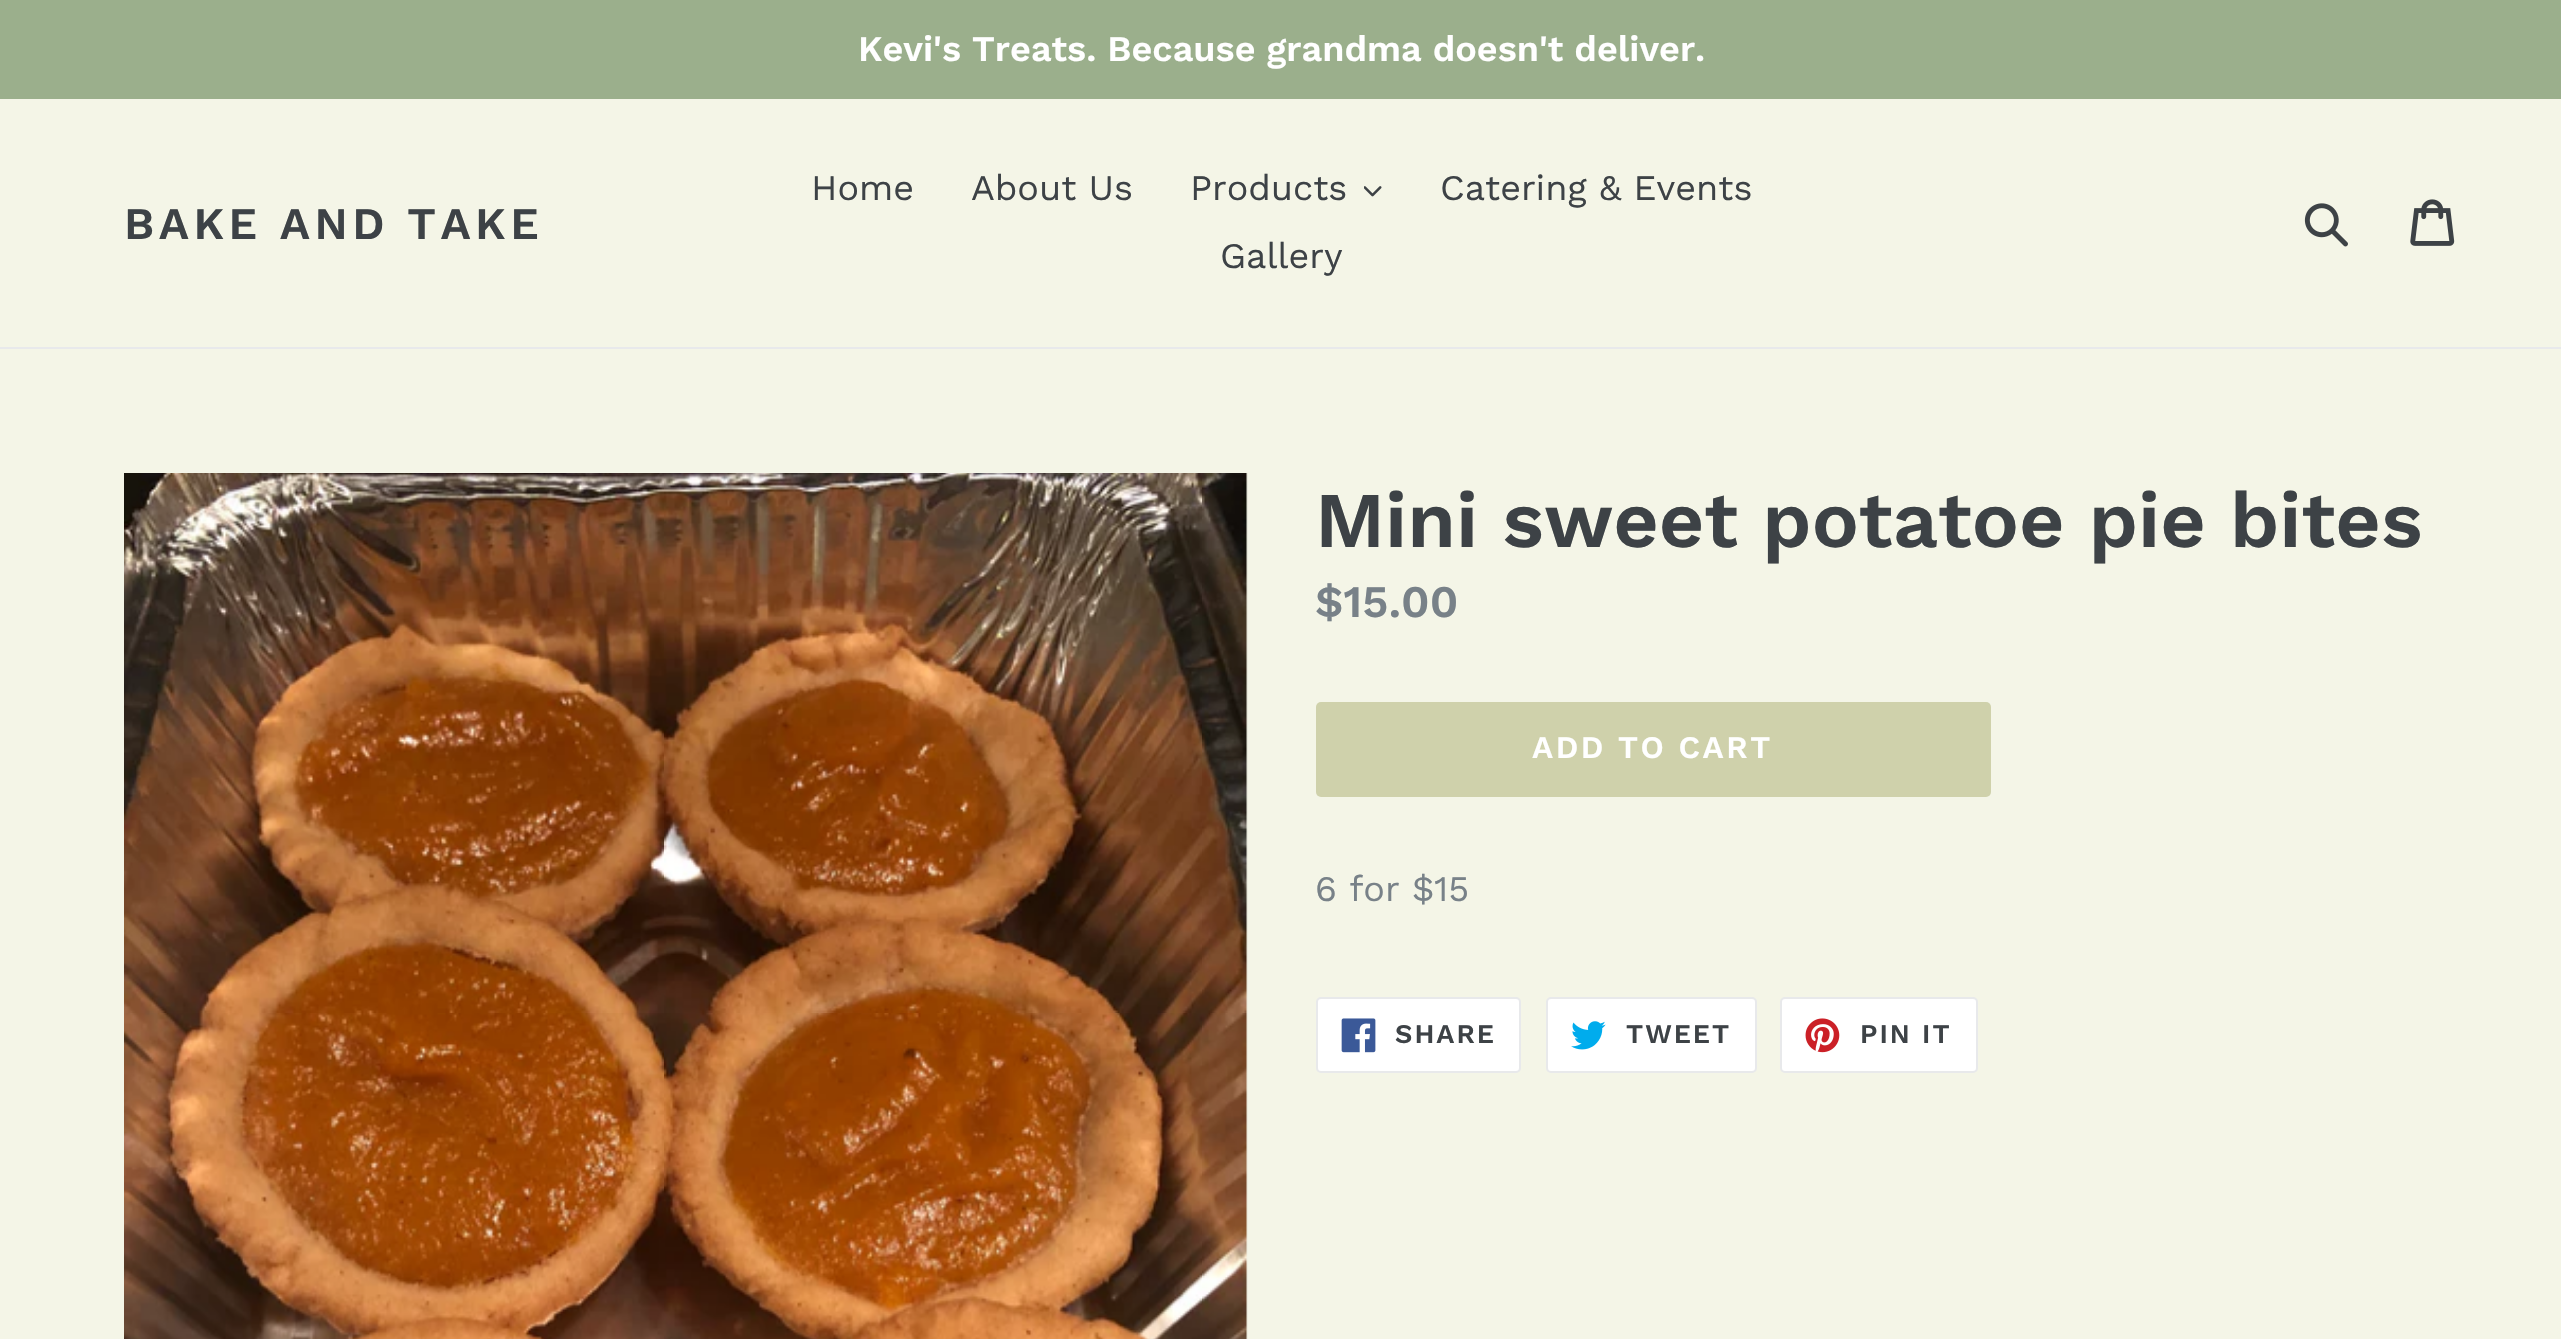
static SkFont makeFont(const char* family, int weight, float size, bool italic = false) {
  SkFontStyle style(weight, SkFontStyle::kNormal_Width,
    italic ? SkFontStyle::kItalic_Slant : SkFontStyle::kUpright_Slant);
  SkFont result(fontMgr->matchFamilyStyle(family, style), size);
  result.setSubpixel(true);
  return result;
}

static void text(SkCanvas* c, const char* s, float x, float y, const SkFont& font, SkColor color) {
  SkPaint ink(SkColor4f::FromColor(color));
  ink.setAntiAlias(true);
  c->drawString(s, x, y, font, ink);
}

static void spacedText(SkCanvas* c, const char* s, float x, float y, const SkFont& font, const SkPaint& ink, float letter, float word) {
  std::vector<SkGlyphID> glyphs(font.countText(s, strlen(s), SkTextEncoding::kUTF8));
  std::vector<float> xs(glyphs.size());
  font.textToGlyphs(s, strlen(s), SkTextEncoding::kUTF8, glyphs);
  font.getXPos(glyphs, xs, x);
  float extra = 0;
  for (size_t i = 0; i < glyphs.size(); i++) {
    xs[i] += extra;
    extra += letter + word * (glyphs[i] == font.unicharToGlyph(' '));
  }
  c->drawTextBlob(SkTextBlob::MakeFromPosHGlyphs(glyphs, xs, y, font), 0, 0, ink);
}

static void box(SkCanvas* c, float l, float t, float r, float b, SkColor color) {
  SkPaint ink(SkColor4f::FromColor(color));
  ink.setAntiAlias(true);
  c->drawRect(SkRect::MakeLTRB(l, t, r, b), ink);
}

static void roundBox(SkCanvas* c, float l, float t, float r, float b, float radius, SkColor color) {
  SkPaint ink(SkColor4f::FromColor(color));
  ink.setAntiAlias(true);
  c->drawRoundRect(SkRect::MakeLTRB(l, t, r, b), radius, radius, ink);
}

static void picture(SkCanvas* c, const char* path, float l, float t, float r, float b) {
  auto image = SkImages::DeferredFromEncodedData(SkData::MakeFromFileName(path));
  c->drawImageRect(image, SkRect::MakeLTRB(l, t, r, b), SkSamplingOptions());
}

void draw(SkCanvas* c) {
  SkPaint paint;
  paint.setAntiAlias(true);
  c->clear(0xfff4f5e7);
  box(c, 0, 0, 2561, 99, 0xff9baf8c);
  SkFont face1 = makeFont("Work Sans", 600, 36);
  text(c, "Kevi's Treats. Because grandma doesn't deliver.", 858, 61, face1, 0xffffffff);
  box(c, 0, 347, 2561, 349, 0xffe8e9eb);
  SkFont face2 = makeFont("Work Sans", 600, 45);
  paint.setColor(0xff3d4246);
  spacedText(c, "BAKE AND TAKE", 124, 239, face2, paint, 4.5f, 0);
  SkFont face3 = makeFont("Work Sans", 400, 36);
  text(c, "Home", 811, 200, face3, 0xff3d4246);
  text(c, "About Us", 971, 200, face3, 0xff3d4246);
  text(c, "Products", 1190, 200, face3, 0xff3d4246);
  picture(c, "img_01.png", 1364, 186, 1382, 197);
  text(c, "Catering & Events", 1440, 200, face3, 0xff3d4246);
  text(c, "Gallery", 1220, 268, face3, 0xff3d4246);
  picture(c, "img_02.png", 2304, 203, 2348, 247);
  picture(c, "img_03.png", 2410, 199, 2455, 246);
  picture(c, "img_04.png", 124, 473, 1248, 1339);
  SkFont face4 = makeFont("Work Sans", 600, 78.75f);
  text(c, "Mini sweet potatoe pie bites", 1315, 547, face4, 0xff3d4246);
  text(c, "$15.00", 1315, 617, face2, 0xff788188);
  roundBox(c, 1316, 702, 1991, 797, 5, 0xffcfd1ab);
  SkFont face5 = makeFont("Work Sans", 600, 31.5f);
  paint.setColor(0xffffffff);
  spacedText(c, "ADD TO CART", 1532, 758, face5, paint, 2.5f, 0);
  text(c, "6 for $15", 1315, 901, face3, 0xff788188);
  c->drawRoundRect(SkRect::MakeLTRB(1317, 998, 1520, 1072), 4, 4, paint);
  paint.setStyle(SkPaint::kStroke_Style);
  paint.setStrokeWidth(2);
  paint.setColor(0xffe8e9eb);
  c->drawRoundRect(SkRect::MakeLTRB(1317, 998, 1520, 1072), 4, 4, paint);
  picture(c, "img_05.png", 1341, 1018, 1376, 1053);
  SkFont face6 = makeFont("Work Sans", 600, 27);
  paint.setStyle(SkPaint::kFill_Style);
  paint.setColor(0xff3d4246);
  spacedText(c, "SHARE", 1395, 1043, face6, paint, 2, 0);
  paint.setColor(0xffffffff);
  c->drawRoundRect(SkRect::MakeLTRB(1547, 998, 1756, 1072), 4, 4, paint);
  paint.setStyle(SkPaint::kStroke_Style);
  paint.setColor(0xffe8e9eb);
  c->drawRoundRect(SkRect::MakeLTRB(1547, 998, 1756, 1072), 4, 4, paint);
  picture(c, "img_06.png", 1571, 1021, 1606, 1050);
  paint.setStyle(SkPaint::kFill_Style);
  paint.setColor(0xff3d4246);
  spacedText(c, "TWEET", 1626, 1043, face6, paint, 2, 0);
  paint.setColor(0xffffffff);
  c->drawRoundRect(SkRect::MakeLTRB(1781, 998, 1977, 1072), 4, 4, paint);
  paint.setStyle(SkPaint::kStroke_Style);
  paint.setColor(0xffe8e9eb);
  c->drawRoundRect(SkRect::MakeLTRB(1781, 998, 1977, 1072), 4, 4, paint);
  picture(c, "img_07.png", 1805, 1018, 1840, 1053);
  paint.setStyle(SkPaint::kFill_Style);
  paint.setColor(0xff3d4246);
  spacedText(c, "PIN IT", 1860, 1043, face6, paint, 2, 0);
}
